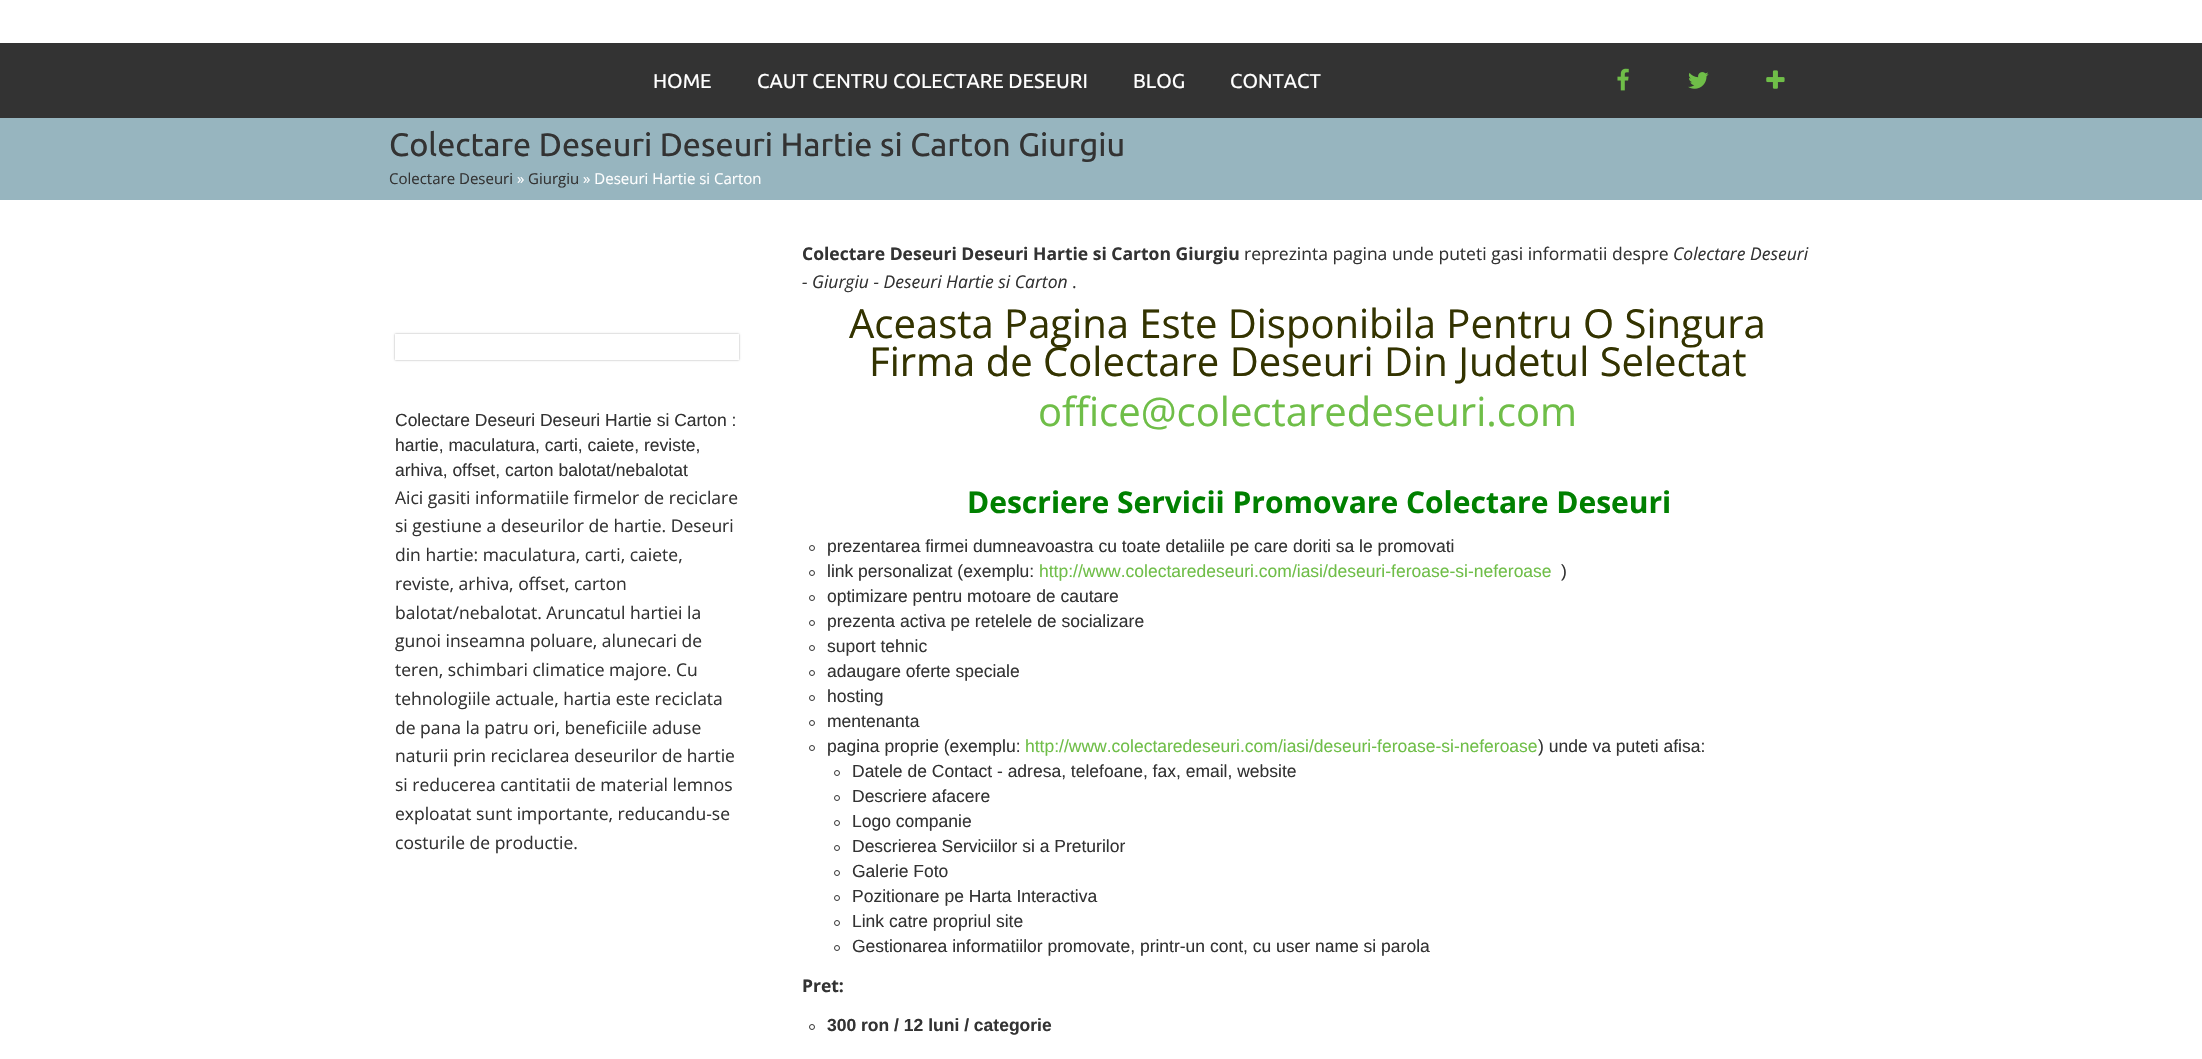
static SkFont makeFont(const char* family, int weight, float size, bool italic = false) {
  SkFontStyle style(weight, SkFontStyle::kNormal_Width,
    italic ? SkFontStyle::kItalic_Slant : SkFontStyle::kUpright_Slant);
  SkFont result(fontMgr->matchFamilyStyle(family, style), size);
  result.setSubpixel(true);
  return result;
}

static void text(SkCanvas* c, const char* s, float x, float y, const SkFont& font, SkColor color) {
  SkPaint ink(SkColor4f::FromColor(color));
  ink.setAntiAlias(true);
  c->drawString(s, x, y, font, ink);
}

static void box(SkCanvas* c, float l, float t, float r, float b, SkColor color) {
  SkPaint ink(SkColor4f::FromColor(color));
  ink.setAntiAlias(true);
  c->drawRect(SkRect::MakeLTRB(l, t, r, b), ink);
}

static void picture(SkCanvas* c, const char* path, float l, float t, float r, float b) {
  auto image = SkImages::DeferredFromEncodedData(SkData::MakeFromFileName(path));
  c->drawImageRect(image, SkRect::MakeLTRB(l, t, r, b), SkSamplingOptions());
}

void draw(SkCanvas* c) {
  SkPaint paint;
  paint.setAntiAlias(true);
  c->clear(0xffffffff);
  box(c, 0, 43, 2202, 118, 0xff333333);
  SkFont face1 = makeFont("Ubuntu", 400, 20);
  text(c, "HOME", 653, 88, face1, 0xffffffff);
  text(c, "CAUT CENTRU COLECTARE DESEURI", 757, 88, face1, 0xffffffff);
  text(c, "BLOG", 1133, 88, face1, 0xffffffff);
  text(c, "CONTACT", 1230, 88, face1, 0xffffffff);
  picture(c, "img_01.png", 1617, 68, 1629, 91);
  picture(c, "img_02.png", 1688, 72, 1709, 89);
  picture(c, "img_03.png", 1766, 70, 1785, 89);
  box(c, 0, 118, 2202, 200, 0xff97b5bf);
  SkFont face2 = makeFont("Ubuntu", 400, 32.5f);
  text(c, "Colectare Deseuri Deseuri Hartie si Carton Giurgiu", 389, 156, face2, 0xff333333);
  SkFont face3 = makeFont("Open Sans", 400, 15);
  text(c, "Colectare Deseuri", 389, 184, face3, 0xff333333);
  text(c, "»", 517, 184, face3, 0xffffffff);
  text(c, "Giurgiu", 528, 184, face3, 0xff333333);
  text(c, "» Deseuri Hartie si Carton", 583, 184, face3, 0xffffffff);
  c->save();
  c->clipPath(SkPathBuilder(SkPathFillType::kEvenOdd).moveTo(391, 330).lineTo(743, 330).lineTo(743, 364).lineTo(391, 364).close().moveTo(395, 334).lineTo(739, 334).lineTo(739, 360).lineTo(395, 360).close().detach(), true);
  paint.setColor(0xffaaaaaa);
  paint.setMaskFilter(SkMaskFilter::MakeBlur(kNormal_SkBlurStyle, 1));
  c->drawRect(SkRect::MakeLTRB(395, 334, 739, 360), paint);
  paint.setMaskFilter(nullptr);
  c->restore();
  SkFont face4 = makeFont("Liberation Sans", 400, 17.5f);
  text(c, "Colectare Deseuri Deseuri Hartie si Carton :", 395, 426, face4, 0xff333333);
  text(c, "hartie, maculatura, carti, caiete, reviste,", 395, 451, face4, 0xff333333);
  text(c, "arhiva, offset, carton balotat/nebalotat", 395, 476, face4, 0xff333333);
  SkFont face5 = makeFont("Open Sans", 400, 17.5f);
  text(c, "Aici gasiti informatiile firmelor de reciclare", 395, 504, face5, 0xff333333);
  text(c, "si gestiune a deseurilor de hartie. Deseuri", 395, 532, face5, 0xff333333);
  text(c, "din hartie: maculatura, carti, caiete,", 395, 561, face5, 0xff333333);
  text(c, "reviste, arhiva, offset, carton", 395, 590, face5, 0xff333333);
  text(c, "balotat/nebalotat. Aruncatul hartiei la", 395, 619, face5, 0xff333333);
  text(c, "gunoi inseamna poluare, alunecari de", 395, 647, face5, 0xff333333);
  text(c, "teren, schimbari climatice majore. Cu", 395, 676, face5, 0xff333333);
  text(c, "tehnologiile actuale, hartia este reciclata", 395, 705, face5, 0xff333333);
  text(c, "de pana la patru ori, beneficiile aduse", 395, 734, face5, 0xff333333);
  text(c, "naturii prin reciclarea deseurilor de hartie", 395, 762, face5, 0xff333333);
  text(c, "si reducerea cantitatii de material lemnos", 395, 791, face5, 0xff333333);
  text(c, "exploatat sunt importante, reducandu-se", 395, 820, face5, 0xff333333);
  text(c, "costurile de productie.", 395, 849, face5, 0xff333333);
  SkFont face6 = makeFont("Open Sans", 700, 17.5f);
  text(c, "Colectare Deseuri Deseuri Hartie si Carton Giurgiu", 802, 260, face6, 0xff333333);
  text(c, "reprezinta pagina unde puteti gasi informatii despre", 1244, 260, face5, 0xff333333);
  SkFont face7 = makeFont("Open Sans", 400, 17.5f, true);
  text(c, "Colectare Deseuri", 1673, 260, face7, 0xff333333);
  text(c, "- Giurgiu - Deseuri Hartie si Carton", 802, 288, face7, 0xff333333);
  text(c, ".", 1072, 288, face5, 0xff333333);
  SkFont face8 = makeFont("Open Sans", 400, 40);
  text(c, "Aceasta Pagina Este Disponibila Pentru O Singura", 849, 338, face8, 0xff333300);
  text(c, "Firma de Colectare Deseuri Din Judetul Selectat", 869, 376, face8, 0xff333300);
  text(c, "office@colectaredeseuri.com", 1038, 426, face8, 0xff6fbe48);
  SkFont face9 = makeFont("Open Sans", 700, 30);
  text(c, "Descriere Servicii Promovare Colectare Deseuri", 967, 513, face9, 0xff008000);
  paint.setStyle(SkPaint::kStroke_Style);
  paint.setStrokeWidth(1);
  paint.setColor(0xff333333);
  c->drawCircle(812, 548, 2.5f, paint);
  text(c, "prezentarea firmei dumneavoastra cu toate detaliile pe care doriti sa le promovati", 827, 552, face4, 0xff333333);
  c->drawCircle(812, 573, 2.5f, paint);
  text(c, "link personalizat (exemplu:", 827, 577, face4, 0xff333333);
  text(c, "http://www.colectaredeseuri.com/iasi/deseuri-feroase-si-neferoase", 1039, 577, face4, 0xff6fbe48);
  text(c, ")", 1561, 577, face4, 0xff333333);
  c->drawCircle(812, 598, 2.5f, paint);
  text(c, "optimizare pentru motoare de cautare", 827, 602, face4, 0xff333333);
  c->drawCircle(812, 623, 2.5f, paint);
  text(c, "prezenta activa pe retelele de socializare", 827, 627, face4, 0xff333333);
  c->drawCircle(812, 648, 2.5f, paint);
  text(c, "suport tehnic", 827, 652, face4, 0xff333333);
  c->drawCircle(812, 673, 2.5f, paint);
  text(c, "adaugare oferte speciale", 827, 677, face4, 0xff333333);
  c->drawCircle(812, 698, 2.5f, paint);
  text(c, "hosting", 827, 702, face4, 0xff333333);
  c->drawCircle(812, 723, 2.5f, paint);
  text(c, "mentenanta", 827, 727, face4, 0xff333333);
  c->drawCircle(812, 748, 2.5f, paint);
  text(c, "pagina proprie (exemplu:", 827, 752, face4, 0xff333333);
  text(c, "http://www.colectaredeseuri.com/iasi/deseuri-feroase-si-neferoase", 1025, 752, face4, 0xff6fbe48);
  text(c, ") unde va puteti afisa:", 1538, 752, face4, 0xff333333);
  c->drawCircle(837, 773, 2.5f, paint);
  text(c, "Datele de Contact - adresa, telefoane, fax, email, website", 852, 777, face4, 0xff333333);
  c->drawCircle(837, 798, 2.5f, paint);
  text(c, "Descriere afacere", 852, 802, face4, 0xff333333);
  c->drawCircle(837, 823, 2.5f, paint);
  text(c, "Logo companie", 852, 827, face4, 0xff333333);
  c->drawCircle(837, 848, 2.5f, paint);
  text(c, "Descrierea Serviciilor si a Preturilor", 852, 852, face4, 0xff333333);
  c->drawCircle(837, 873, 2.5f, paint);
  text(c, "Galerie Foto", 852, 877, face4, 0xff333333);
  c->drawCircle(837, 898, 2.5f, paint);
  text(c, "Pozitionare pe Harta Interactiva", 852, 902, face4, 0xff333333);
  c->drawCircle(837, 923, 2.5f, paint);
  text(c, "Link catre propriul site", 852, 927, face4, 0xff333333);
  c->drawCircle(837, 948, 2.5f, paint);
  text(c, "Gestionarea informatiilor promovate, printr-un cont, cu user name si parola", 852, 952, face4, 0xff333333);
  text(c, "Pret:", 802, 992, face6, 0xff333333);
  c->drawCircle(812, 1027, 2.5f, paint);
  SkFont face10 = makeFont("Liberation Sans", 700, 17.5f);
  text(c, "300 ron / 12 luni / categorie", 827, 1031, face10, 0xff333333);
}
